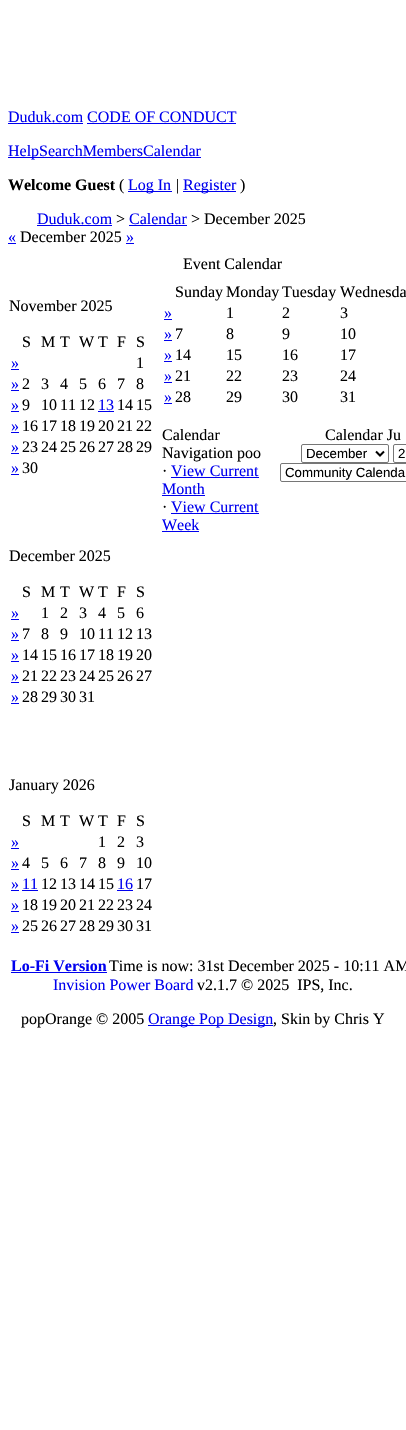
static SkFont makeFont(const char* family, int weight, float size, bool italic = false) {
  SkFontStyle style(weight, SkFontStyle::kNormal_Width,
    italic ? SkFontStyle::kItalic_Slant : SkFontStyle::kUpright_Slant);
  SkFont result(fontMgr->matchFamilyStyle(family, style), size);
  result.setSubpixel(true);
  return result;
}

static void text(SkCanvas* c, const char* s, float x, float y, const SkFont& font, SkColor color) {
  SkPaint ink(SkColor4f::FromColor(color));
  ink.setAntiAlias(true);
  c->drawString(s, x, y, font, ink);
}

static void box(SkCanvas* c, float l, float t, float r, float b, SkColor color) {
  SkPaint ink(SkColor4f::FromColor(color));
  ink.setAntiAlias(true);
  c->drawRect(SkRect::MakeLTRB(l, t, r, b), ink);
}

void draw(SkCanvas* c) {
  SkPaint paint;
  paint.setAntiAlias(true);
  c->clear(0xffffffff);
  SkFont face1 = makeFont("Liberation Serif", 400, 16);
  text(c, "Duduk.com CODE OF CONDUCT", 8, 122, face1, 0xff0000ee);
  box(c, 8, 123, 83, 124, 0xff0000ee);
  box(c, 87, 123, 236, 124, 0xff0000ee);
  box(c, 8, 157, 201, 158, 0xff0000ee);
  text(c, "HelpSearchMembersCalendar", 8, 156, face1, 0xff0000ee);
  SkFont face2 = makeFont("Liberation Serif", 700, 16);
  text(c, "Welcome Guest", 8, 190, face2, 0xff000000);
  text(c, "(", 119, 190, face1, 0xff000000);
  box(c, 128, 191, 172, 192, 0xff0000ee);
  text(c, "Log In", 128, 190, face1, 0xff0000ee);
  text(c, "|", 176, 190, face1, 0xff000000);
  box(c, 183, 191, 236, 192, 0xff0000ee);
  text(c, "Register", 183, 190, face1, 0xff0000ee);
  text(c, ")", 240, 190, face1, 0xff000000);
  text(c, "Duduk.com", 37, 224, face1, 0xff0000ee);
  box(c, 37, 225, 112, 226, 0xff0000ee);
  text(c, ">", 116, 224, face1, 0xff000000);
  text(c, "Calendar", 129, 224, face1, 0xff0000ee);
  box(c, 129, 225, 187, 226, 0xff0000ee);
  text(c, "> December 2025", 191, 224, face1, 0xff000000);
  text(c, "«", 8, 242, face1, 0xff0000ee);
  box(c, 8, 243, 16, 244, 0xff0000ee);
  text(c, "December 2025", 20, 242, face1, 0xff000000);
  text(c, "»", 126, 242, face1, 0xff0000ee);
  box(c, 126, 243, 134, 244, 0xff0000ee);
  text(c, "November 2025", 9, 311, face1, 0xff000000);
  text(c, "S", 22, 347, face1, 0xff000000);
  text(c, "M", 41, 347, face1, 0xff000000);
  text(c, "T", 60, 347, face1, 0xff000000);
  text(c, "W T", 79, 347, face1, 0xff000000);
  text(c, "F", 117, 347, face1, 0xff000000);
  text(c, "S", 136, 347, face1, 0xff000000);
  text(c, "»", 11, 368, face1, 0xff0000ee);
  box(c, 11, 369, 19, 370, 0xff0000ee);
  text(c, "1", 136, 368, face1, 0xff000000);
  text(c, "»", 11, 389, face1, 0xff0000ee);
  box(c, 11, 390, 19, 391, 0xff0000ee);
  text(c, "2", 22, 389, face1, 0xff000000);
  text(c, "3", 41, 389, face1, 0xff000000);
  text(c, "4", 60, 389, face1, 0xff000000);
  text(c, "5", 79, 389, face1, 0xff000000);
  text(c, "6", 98, 389, face1, 0xff000000);
  text(c, "7", 117, 389, face1, 0xff000000);
  text(c, "8", 136, 389, face1, 0xff000000);
  text(c, "»", 11, 410, face1, 0xff0000ee);
  box(c, 11, 411, 19, 412, 0xff0000ee);
  text(c, "9", 22, 410, face1, 0xff000000);
  text(c, "10", 41, 410, face1, 0xff000000);
  text(c, "11", 60, 410, face1, 0xff000000);
  text(c, "12", 79, 410, face1, 0xff000000);
  text(c, "13", 98, 410, face1, 0xff0000ee);
  box(c, 98, 411, 114, 412, 0xff0000ee);
  text(c, "14", 117, 410, face1, 0xff000000);
  text(c, "15", 136, 410, face1, 0xff000000);
  text(c, "»", 11, 431, face1, 0xff0000ee);
  box(c, 11, 432, 19, 433, 0xff0000ee);
  text(c, "16", 22, 431, face1, 0xff000000);
  text(c, "17", 41, 431, face1, 0xff000000);
  text(c, "18", 60, 431, face1, 0xff000000);
  text(c, "19", 79, 431, face1, 0xff000000);
  text(c, "20", 98, 431, face1, 0xff000000);
  text(c, "21", 117, 431, face1, 0xff000000);
  text(c, "22", 136, 431, face1, 0xff000000);
  text(c, "»", 11, 452, face1, 0xff0000ee);
  box(c, 11, 453, 19, 454, 0xff0000ee);
  text(c, "23", 22, 452, face1, 0xff000000);
  text(c, "24", 41, 452, face1, 0xff000000);
  text(c, "25", 60, 452, face1, 0xff000000);
  text(c, "26", 79, 452, face1, 0xff000000);
  text(c, "27", 98, 452, face1, 0xff000000);
  text(c, "28", 117, 452, face1, 0xff000000);
  text(c, "29", 136, 452, face1, 0xff000000);
  text(c, "»", 11, 473, face1, 0xff0000ee);
  box(c, 11, 474, 19, 475, 0xff0000ee);
  text(c, "30", 22, 473, face1, 0xff000000);
  text(c, "December 2025", 9, 561, face1, 0xff000000);
  text(c, "S", 22, 597, face1, 0xff000000);
  text(c, "M", 41, 597, face1, 0xff000000);
  text(c, "T", 60, 597, face1, 0xff000000);
  text(c, "W T", 79, 597, face1, 0xff000000);
  text(c, "F", 117, 597, face1, 0xff000000);
  text(c, "S", 136, 597, face1, 0xff000000);
  text(c, "»", 11, 618, face1, 0xff0000ee);
  box(c, 11, 619, 19, 620, 0xff0000ee);
  text(c, "1", 41, 618, face1, 0xff000000);
  text(c, "2", 60, 618, face1, 0xff000000);
  text(c, "3", 79, 618, face1, 0xff000000);
  text(c, "4", 98, 618, face1, 0xff000000);
  text(c, "5", 117, 618, face1, 0xff000000);
  text(c, "6", 136, 618, face1, 0xff000000);
  text(c, "»", 11, 639, face1, 0xff0000ee);
  box(c, 11, 640, 19, 641, 0xff0000ee);
  text(c, "7", 22, 639, face1, 0xff000000);
  text(c, "8", 41, 639, face1, 0xff000000);
  text(c, "9", 60, 639, face1, 0xff000000);
  text(c, "10", 79, 639, face1, 0xff000000);
  text(c, "11", 98, 639, face1, 0xff000000);
  text(c, "12", 117, 639, face1, 0xff000000);
  text(c, "13", 136, 639, face1, 0xff000000);
  text(c, "»", 11, 660, face1, 0xff0000ee);
  box(c, 11, 661, 19, 662, 0xff0000ee);
  text(c, "14", 22, 660, face1, 0xff000000);
  text(c, "15", 41, 660, face1, 0xff000000);
  text(c, "16", 60, 660, face1, 0xff000000);
  text(c, "17", 79, 660, face1, 0xff000000);
  text(c, "18", 98, 660, face1, 0xff000000);
  text(c, "19", 117, 660, face1, 0xff000000);
  text(c, "20", 136, 660, face1, 0xff000000);
  text(c, "»", 11, 681, face1, 0xff0000ee);
  box(c, 11, 682, 19, 683, 0xff0000ee);
  text(c, "21", 22, 681, face1, 0xff000000);
  text(c, "22", 41, 681, face1, 0xff000000);
  text(c, "23", 60, 681, face1, 0xff000000);
  text(c, "24", 79, 681, face1, 0xff000000);
  text(c, "25", 98, 681, face1, 0xff000000);
  text(c, "26", 117, 681, face1, 0xff000000);
  text(c, "27", 136, 681, face1, 0xff000000);
  text(c, "»", 11, 702, face1, 0xff0000ee);
  box(c, 11, 703, 19, 704, 0xff0000ee);
  text(c, "28", 22, 702, face1, 0xff000000);
  text(c, "29", 41, 702, face1, 0xff000000);
  text(c, "30", 60, 702, face1, 0xff000000);
  text(c, "31", 79, 702, face1, 0xff000000);
  text(c, "January 2026", 9, 790, face1, 0xff000000);
  text(c, "S", 22, 826, face1, 0xff000000);
  text(c, "M", 41, 826, face1, 0xff000000);
  text(c, "T", 60, 826, face1, 0xff000000);
  text(c, "W T", 79, 826, face1, 0xff000000);
  text(c, "F", 117, 826, face1, 0xff000000);
  text(c, "S", 136, 826, face1, 0xff000000);
  text(c, "»", 11, 847, face1, 0xff0000ee);
  box(c, 11, 848, 19, 849, 0xff0000ee);
  text(c, "1", 98, 847, face1, 0xff000000);
  text(c, "2", 117, 847, face1, 0xff000000);
  text(c, "3", 136, 847, face1, 0xff000000);
  text(c, "»", 11, 868, face1, 0xff0000ee);
  box(c, 11, 869, 19, 870, 0xff0000ee);
  text(c, "4", 22, 868, face1, 0xff000000);
  text(c, "5", 41, 868, face1, 0xff000000);
  text(c, "6", 60, 868, face1, 0xff000000);
  text(c, "7", 79, 868, face1, 0xff000000);
  text(c, "8", 98, 868, face1, 0xff000000);
  text(c, "9", 117, 868, face1, 0xff000000);
  text(c, "10", 136, 868, face1, 0xff000000);
  text(c, "»", 11, 889, face1, 0xff0000ee);
  box(c, 11, 890, 19, 891, 0xff0000ee);
  text(c, "11", 22, 889, face1, 0xff0000ee);
  box(c, 22, 890, 38, 891, 0xff0000ee);
  text(c, "12", 41, 889, face1, 0xff000000);
  text(c, "13", 60, 889, face1, 0xff000000);
  text(c, "14", 79, 889, face1, 0xff000000);
  text(c, "15", 98, 889, face1, 0xff000000);
  text(c, "16", 117, 889, face1, 0xff0000ee);
  box(c, 117, 890, 133, 891, 0xff0000ee);
  text(c, "17", 136, 889, face1, 0xff000000);
  text(c, "»", 11, 910, face1, 0xff0000ee);
  box(c, 11, 911, 19, 912, 0xff0000ee);
  text(c, "18", 22, 910, face1, 0xff000000);
  text(c, "19", 41, 910, face1, 0xff000000);
  text(c, "20", 60, 910, face1, 0xff000000);
  text(c, "21", 79, 910, face1, 0xff000000);
  text(c, "22", 98, 910, face1, 0xff000000);
  text(c, "23", 117, 910, face1, 0xff000000);
  text(c, "24", 136, 910, face1, 0xff000000);
  text(c, "»", 11, 931, face1, 0xff0000ee);
  box(c, 11, 932, 19, 933, 0xff0000ee);
  text(c, "25", 22, 931, face1, 0xff000000);
  text(c, "26", 41, 931, face1, 0xff000000);
  text(c, "27", 60, 931, face1, 0xff000000);
  text(c, "28", 79, 931, face1, 0xff000000);
  text(c, "29", 98, 931, face1, 0xff000000);
  text(c, "30", 117, 931, face1, 0xff000000);
  text(c, "31", 136, 931, face1, 0xff000000);
  text(c, "Event Calendar", 183, 269, face1, 0xff000000);
  text(c, "Sunday", 175, 297, face1, 0xff000000);
  text(c, "Monday", 226, 297, face1, 0xff000000);
  text(c, "Tuesday", 282, 297, face1, 0xff000000);
  text(c, "Wednesda", 340, 297, face1, 0xff000000);
  text(c, "»", 164, 318, face1, 0xff0000ee);
  box(c, 164, 319, 172, 320, 0xff0000ee);
  text(c, "1", 226, 318, face1, 0xff000000);
  text(c, "2", 282, 318, face1, 0xff000000);
  text(c, "3", 340, 318, face1, 0xff000000);
  text(c, "»", 164, 339, face1, 0xff0000ee);
  box(c, 164, 340, 172, 341, 0xff0000ee);
  text(c, "7", 175, 339, face1, 0xff000000);
  text(c, "8", 226, 339, face1, 0xff000000);
  text(c, "9", 282, 339, face1, 0xff000000);
  text(c, "10", 340, 339, face1, 0xff000000);
  text(c, "»", 164, 360, face1, 0xff0000ee);
  box(c, 164, 361, 172, 362, 0xff0000ee);
  text(c, "14", 175, 360, face1, 0xff000000);
  text(c, "15", 226, 360, face1, 0xff000000);
  text(c, "16", 282, 360, face1, 0xff000000);
  text(c, "17", 340, 360, face1, 0xff000000);
  text(c, "»", 164, 381, face1, 0xff0000ee);
  box(c, 164, 382, 172, 383, 0xff0000ee);
  text(c, "21", 175, 381, face1, 0xff000000);
  text(c, "22", 226, 381, face1, 0xff000000);
  text(c, "23", 282, 381, face1, 0xff000000);
  text(c, "24", 340, 381, face1, 0xff000000);
  text(c, "»", 164, 402, face1, 0xff0000ee);
  box(c, 164, 403, 172, 404, 0xff0000ee);
  text(c, "28", 175, 402, face1, 0xff000000);
  text(c, "29", 226, 402, face1, 0xff000000);
  text(c, "30", 282, 402, face1, 0xff000000);
  text(c, "31", 340, 402, face1, 0xff000000);
  text(c, "Calendar", 162, 440, face1, 0xff000000);
  text(c, "Navigation poo", 162, 458, face1, 0xff000000);
  text(c, "·", 162, 476, face1, 0xff000000);
  text(c, "View Current", 171, 476, face1, 0xff0000ee);
  box(c, 171, 477, 259, 478, 0xff0000ee);
  text(c, "Month", 162, 494, face1, 0xff0000ee);
  box(c, 162, 495, 205, 496, 0xff0000ee);
  text(c, "·", 162, 512, face1, 0xff000000);
  text(c, "View Current", 171, 512, face1, 0xff0000ee);
  box(c, 171, 513, 259, 514, 0xff0000ee);
  text(c, "Week", 162, 530, face1, 0xff0000ee);
  box(c, 162, 531, 199, 532, 0xff0000ee);
  text(c, "Calendar Ju", 325, 440, face1, 0xff000000);
  paint.setStyle(SkPaint::kStroke_Style);
  paint.setStrokeWidth(1);
  paint.setColor(0xff767676);
  c->drawRoundRect(SkRect::MakeLTRB(301.5f, 444.5f, 388.5f, 462.5f), 1.5f, 1.5f, paint);
  paint.setStrokeWidth(2);
  paint.setColor(0xff000000);
  c->drawPath(SkPathBuilder().moveTo(376, 451.5f).lineTo(380, 455.5f).lineTo(384, 451.5f).detach(), paint);
  SkFont face3 = makeFont("Liberation Sans", 400, 13.25f);
  text(c, "December", 306, 458, face3, 0xff000000);
  paint.setStrokeWidth(1);
  paint.setColor(0xff767676);
  c->drawRoundRect(SkRect::MakeLTRB(393.5f, 444.5f, 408.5f, 462.5f), 1.5f, 1.5f, paint);
  text(c, "2", 398, 458, face3, 0xff000000);
  c->drawRoundRect(SkRect::MakeLTRB(280.5f, 463.5f, 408.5f, 481.5f), 1.5f, 1.5f, paint);
  text(c, "Community Calenda", 285, 477, face3, 0xff000000);
  text(c, "Lo-Fi Version", 11, 971, face2, 0xff0000ee);
  box(c, 11, 972, 107, 973, 0xff0000ee);
  text(c, "Time is now: 31st December 2025 - 10:11 AM", 109, 971, face1, 0xff000000);
  text(c, "Invision Power Board", 53, 990, face1, 0xff0000ee);
  text(c, "v2.1.7 © 2025  IPS, Inc.", 197, 990, face1, 0xff000000);
  text(c, "popOrange © 2005", 21, 1024, face1, 0xff000000);
  box(c, 148, 1025, 273, 1026, 0xff0000ee);
  text(c, "Orange Pop Design", 148, 1024, face1, 0xff0000ee);
  text(c, ", Skin by Chris Y", 273, 1024, face1, 0xff000000);
}
